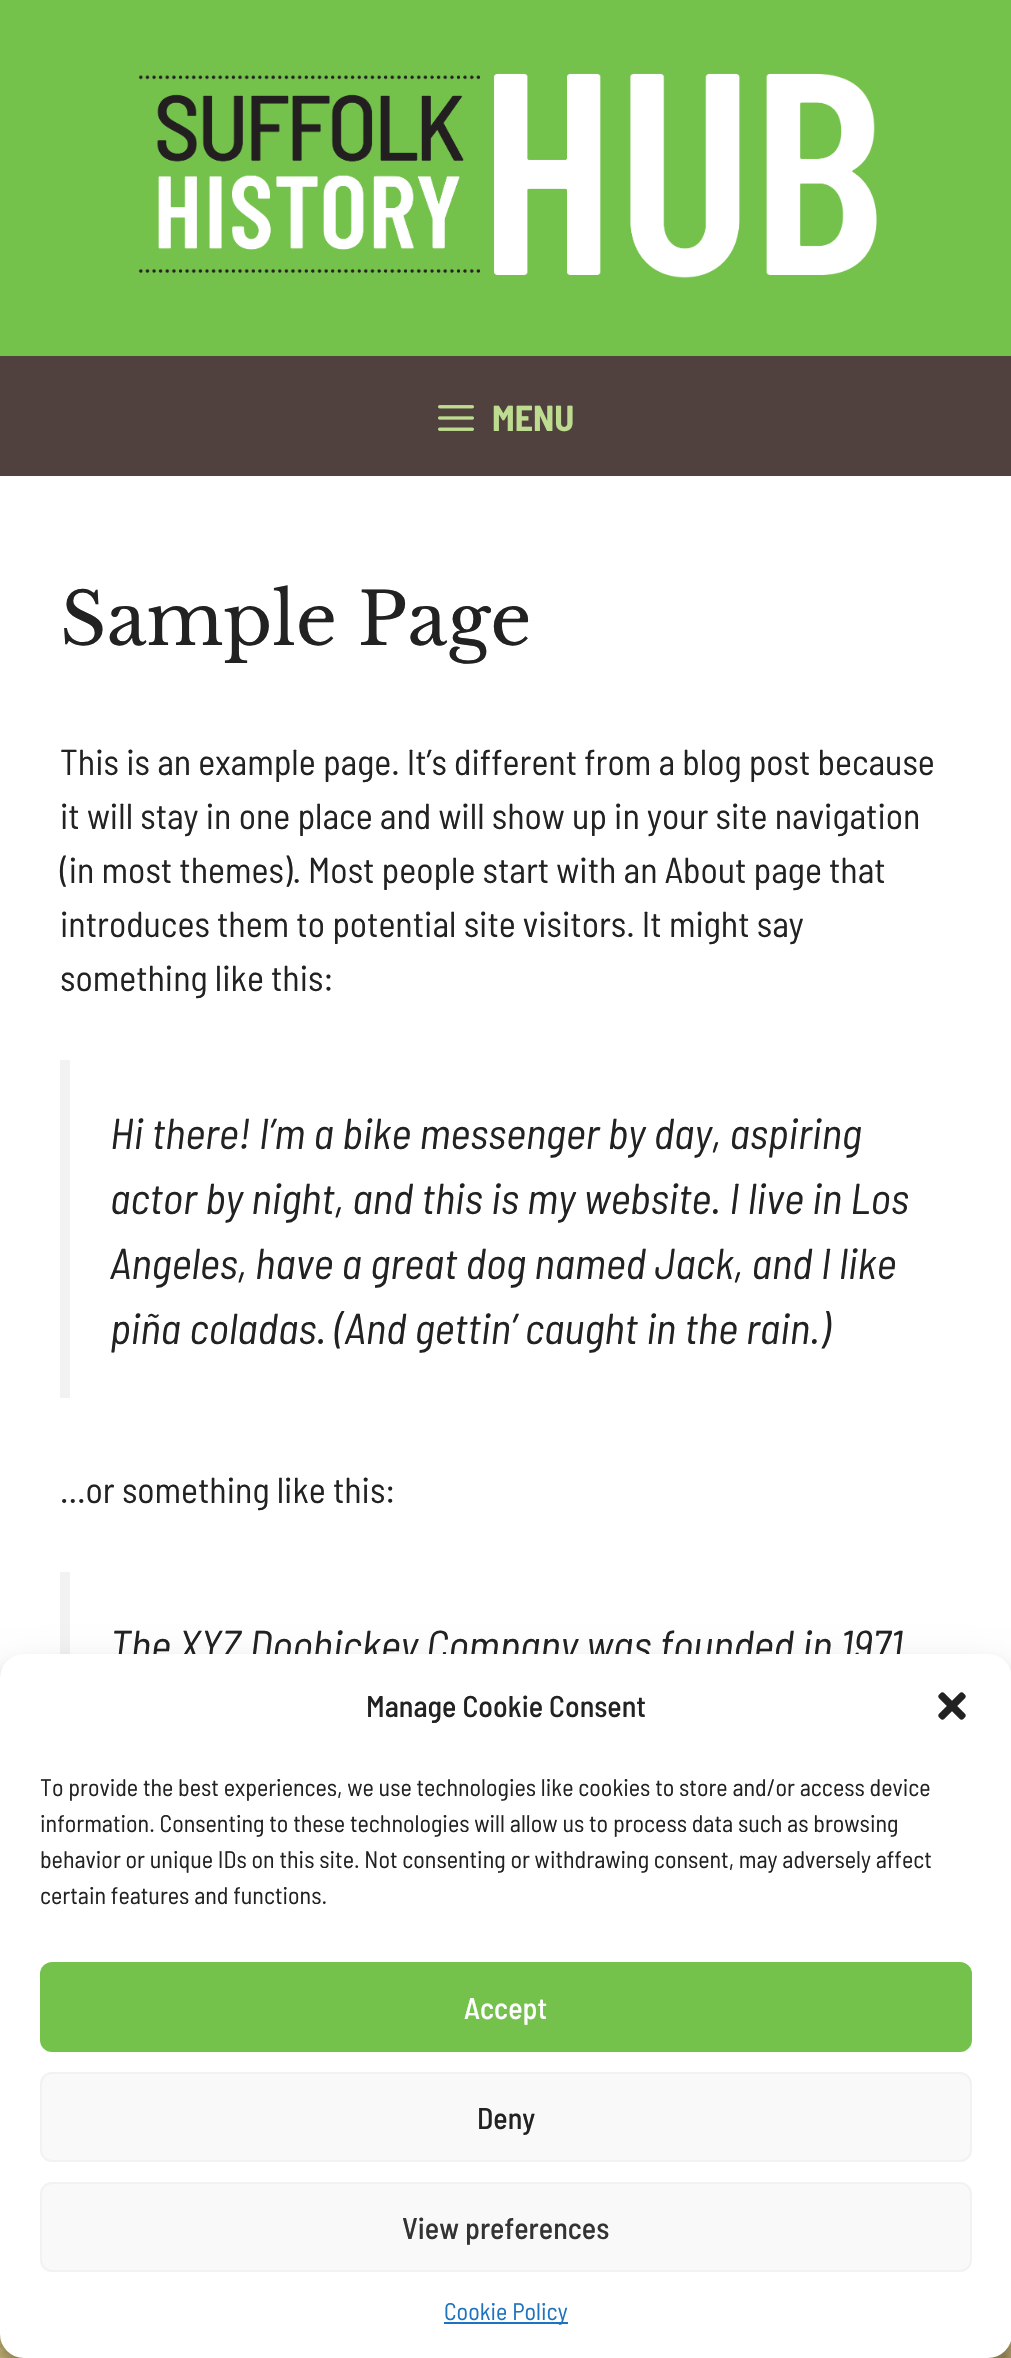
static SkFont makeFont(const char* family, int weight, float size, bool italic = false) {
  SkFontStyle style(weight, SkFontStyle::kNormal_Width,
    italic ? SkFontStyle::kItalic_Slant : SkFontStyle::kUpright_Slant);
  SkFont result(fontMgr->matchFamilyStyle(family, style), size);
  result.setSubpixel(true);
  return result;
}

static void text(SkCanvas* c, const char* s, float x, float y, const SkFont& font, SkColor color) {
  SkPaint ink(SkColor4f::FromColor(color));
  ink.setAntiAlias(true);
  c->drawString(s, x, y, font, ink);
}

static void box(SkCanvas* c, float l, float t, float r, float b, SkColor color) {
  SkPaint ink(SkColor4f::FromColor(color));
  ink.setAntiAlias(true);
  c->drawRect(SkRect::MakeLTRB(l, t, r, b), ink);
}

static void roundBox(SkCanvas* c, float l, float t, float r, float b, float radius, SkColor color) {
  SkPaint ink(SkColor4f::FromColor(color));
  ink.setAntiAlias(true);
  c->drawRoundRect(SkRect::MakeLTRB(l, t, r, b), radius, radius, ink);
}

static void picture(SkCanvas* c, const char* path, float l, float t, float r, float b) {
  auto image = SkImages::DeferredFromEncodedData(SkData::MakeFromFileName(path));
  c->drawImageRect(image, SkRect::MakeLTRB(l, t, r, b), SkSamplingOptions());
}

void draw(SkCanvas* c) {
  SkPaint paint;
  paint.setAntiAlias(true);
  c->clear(0xffffffff);
  box(c, 0, 0, 1011, 356, 0xff74c24c);
  picture(c, "img_01.png", 138, 73, 877, 278);
  box(c, 0, 356, 1011, 476, 0xff50403e);
  picture(c, "img_02.png", 438, 405, 474, 431);
  SkFont face1 = makeFont("Barlow Semi Condensed", 700, 36);
  text(c, "MENU", 492, 431, face1, 0xffbddc8f);
  SkFont face2 = makeFont("Libre Baskerville", 400, 72);
  text(c, "Sample Page", 60, 645, face2, 0xff222222);
  SkFont face3 = makeFont("Barlow Semi Condensed", 400, 36);
  text(c, "This is an example page. It’s different from a blog post because", 60, 775, face3, 0xff222222);
  text(c, "it will stay in one place and will show up in your site navigation", 60, 829, face3, 0xff222222);
  text(c, "(in most themes). Most people start with an About page that", 60, 883, face3, 0xff222222);
  text(c, "introduces them to potential site visitors. It might say", 60, 937, face3, 0xff222222);
  text(c, "something like this:", 60, 991, face3, 0xff222222);
  box(c, 60, 1060, 70, 1398, 0xfff2f2f2);
  SkFont face4 = makeFont("Barlow Semi Condensed", 400, 43.25f, true);
  text(c, "Hi there! I’m a bike messenger by day, aspiring", 110, 1149, face4, 0xff222222);
  text(c, "actor by night, and this is my website. I live in Los", 110, 1214, face4, 0xff222222);
  text(c, "Angeles, have a great dog named Jack, and I like", 110, 1279, face4, 0xff222222);
  text(c, "piña coladas. (And gettin’ caught in the rain.)", 110, 1344, face4, 0xff222222);
  text(c, "…or something like this:", 60, 1503, face3, 0xff222222);
  box(c, 60, 1572, 70, 1654, 0xfff2f2f2);
  text(c, "The XYZ Doohickey Company was founded in 1971", 110, 1661, face4, 0xff222222);
  picture(c, "img_04.png", 0, 2334, 1011, 2358);
  paint.setColor(0x3b000000);
  paint.setMaskFilter(SkMaskFilter::MakeBlur(kNormal_SkBlurStyle, 6));
  c->drawRoundRect(SkRect::MakeLTRB(0, 1666, 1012, 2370), 24, 24, paint);
  paint.setMaskFilter(nullptr);
  paint.setColor(0x30000000);
  paint.setMaskFilter(SkMaskFilter::MakeBlur(kNormal_SkBlurStyle, 20));
  c->drawRoundRect(SkRect::MakeLTRB(0, 1674, 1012, 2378), 24, 24, paint);
  paint.setMaskFilter(nullptr);
  roundBox(c, 0, 1654, 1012, 2358, 24, 0xffffffff);
  SkFont face5 = makeFont("Barlow Semi Condensed", 500, 30);
  text(c, "Manage Cookie Consent", 366, 1717, face5, 0xff222222);
  picture(c, "img_03.png", 938, 1692, 966, 1720);
  SkFont face6 = makeFont("Barlow Semi Condensed", 400, 24);
  text(c, "To provide the best experiences, we use technologies like cookies to store and/or access device", 40, 1796, face6, 0xff222222);
  text(c, "information. Consenting to these technologies will allow us to process data such as browsing", 40, 1832, face6, 0xff222222);
  text(c, "behavior or unique IDs on this site. Not consenting or withdrawing consent, may adversely affect", 40, 1868, face6, 0xff222222);
  text(c, "certain features and functions.", 40, 1904, face6, 0xff222222);
  paint.setColor(0xff74c24c);
  c->drawRoundRect(SkRect::MakeLTRB(41, 1963, 971, 2051), 11, 11, paint);
  paint.setStyle(SkPaint::kStroke_Style);
  paint.setStrokeWidth(2);
  c->drawRoundRect(SkRect::MakeLTRB(41, 1963, 971, 2051), 11, 11, paint);
  text(c, "Accept", 464, 2019, face5, 0xffffffff);
  paint.setStyle(SkPaint::kFill_Style);
  paint.setColor(0xfff9f9f9);
  c->drawRoundRect(SkRect::MakeLTRB(41, 2073, 971, 2161), 11, 11, paint);
  paint.setStyle(SkPaint::kStroke_Style);
  paint.setColor(0xfff2f2f2);
  c->drawRoundRect(SkRect::MakeLTRB(41, 2073, 971, 2161), 11, 11, paint);
  text(c, "Deny", 477, 2129, face5, 0xff222222);
  paint.setStyle(SkPaint::kFill_Style);
  paint.setColor(0xfff9f9f9);
  c->drawRoundRect(SkRect::MakeLTRB(41, 2183, 971, 2271), 11, 11, paint);
  paint.setStyle(SkPaint::kStroke_Style);
  paint.setColor(0xfff2f2f2);
  c->drawRoundRect(SkRect::MakeLTRB(41, 2183, 971, 2271), 11, 11, paint);
  text(c, "View preferences", 402, 2239, face5, 0xff333333);
  box(c, 444, 2322, 568, 2324, 0xff1e73be);
  text(c, "Cookie Policy", 444, 2320, face6, 0xff1e73be);
}
